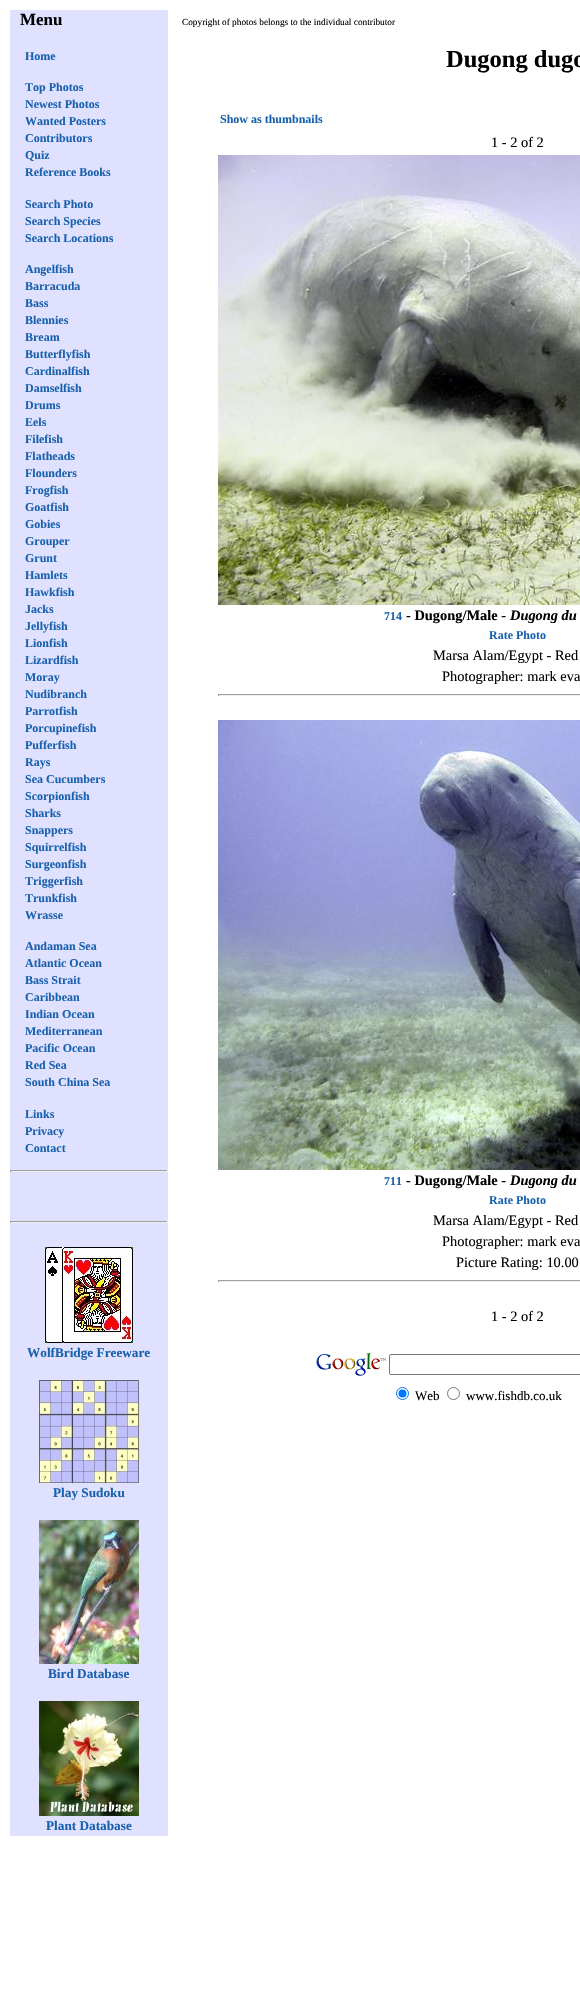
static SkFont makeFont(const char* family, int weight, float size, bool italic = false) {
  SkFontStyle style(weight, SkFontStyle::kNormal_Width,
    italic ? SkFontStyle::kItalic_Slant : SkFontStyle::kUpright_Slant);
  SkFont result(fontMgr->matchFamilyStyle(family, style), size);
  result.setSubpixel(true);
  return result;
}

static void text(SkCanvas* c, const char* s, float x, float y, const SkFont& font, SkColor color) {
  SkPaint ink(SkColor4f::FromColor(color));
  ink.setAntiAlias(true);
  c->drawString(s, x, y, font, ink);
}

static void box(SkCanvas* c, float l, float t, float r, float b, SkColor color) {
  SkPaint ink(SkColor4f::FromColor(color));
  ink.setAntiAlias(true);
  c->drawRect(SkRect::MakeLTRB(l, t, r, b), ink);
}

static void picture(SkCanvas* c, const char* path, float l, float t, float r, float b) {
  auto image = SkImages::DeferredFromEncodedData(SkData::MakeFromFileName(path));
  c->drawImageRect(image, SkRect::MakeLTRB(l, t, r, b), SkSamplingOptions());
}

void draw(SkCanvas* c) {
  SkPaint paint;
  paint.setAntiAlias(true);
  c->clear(0xffffffff);
  box(c, 10, 10, 168, 1836, 0xffe0e0ff);
  SkFont face1 = makeFont("Liberation Serif", 700, 17);
  text(c, "Menu", 20, 25, face1, 0xff000000);
  SkFont face2 = makeFont("Liberation Serif", 700, 12);
  text(c, "Home", 25, 60, face2, 0xff1861ad);
  text(c, "Top Photos", 25, 91, face2, 0xff1861ad);
  text(c, "Newest Photos", 25, 108, face2, 0xff1861ad);
  text(c, "Wanted Posters", 25, 125, face2, 0xff1861ad);
  text(c, "Contributors", 25, 142, face2, 0xff1861ad);
  text(c, "Quiz", 25, 159, face2, 0xff1861ad);
  text(c, "Reference Books", 25, 176, face2, 0xff1861ad);
  text(c, "Search Photo", 25, 208, face2, 0xff1861ad);
  text(c, "Search Species", 25, 225, face2, 0xff1861ad);
  text(c, "Search Locations", 25, 242, face2, 0xff1861ad);
  text(c, "Angelfish", 25, 273, face2, 0xff1861ad);
  text(c, "Barracuda", 25, 290, face2, 0xff1861ad);
  text(c, "Bass", 25, 307, face2, 0xff1861ad);
  text(c, "Blennies", 25, 324, face2, 0xff1861ad);
  text(c, "Bream", 25, 341, face2, 0xff1861ad);
  text(c, "Butterflyfish", 25, 358, face2, 0xff1861ad);
  text(c, "Cardinalfish", 25, 375, face2, 0xff1861ad);
  text(c, "Damselfish", 25, 392, face2, 0xff1861ad);
  text(c, "Drums", 25, 409, face2, 0xff1861ad);
  text(c, "Eels", 25, 426, face2, 0xff1861ad);
  text(c, "Filefish", 25, 443, face2, 0xff1861ad);
  text(c, "Flatheads", 25, 460, face2, 0xff1861ad);
  text(c, "Flounders", 25, 477, face2, 0xff1861ad);
  text(c, "Frogfish", 25, 494, face2, 0xff1861ad);
  text(c, "Goatfish", 25, 511, face2, 0xff1861ad);
  text(c, "Gobies", 25, 528, face2, 0xff1861ad);
  text(c, "Grouper", 25, 545, face2, 0xff1861ad);
  text(c, "Grunt", 25, 562, face2, 0xff1861ad);
  text(c, "Hamlets", 25, 579, face2, 0xff1861ad);
  text(c, "Hawkfish", 25, 596, face2, 0xff1861ad);
  text(c, "Jacks", 25, 613, face2, 0xff1861ad);
  text(c, "Jellyfish", 25, 630, face2, 0xff1861ad);
  text(c, "Lionfish", 25, 647, face2, 0xff1861ad);
  text(c, "Lizardfish", 25, 664, face2, 0xff1861ad);
  text(c, "Moray", 25, 681, face2, 0xff1861ad);
  text(c, "Nudibranch", 25, 698, face2, 0xff1861ad);
  text(c, "Parrotfish", 25, 715, face2, 0xff1861ad);
  text(c, "Porcupinefish", 25, 732, face2, 0xff1861ad);
  text(c, "Pufferfish", 25, 749, face2, 0xff1861ad);
  text(c, "Rays", 25, 766, face2, 0xff1861ad);
  text(c, "Sea Cucumbers", 25, 783, face2, 0xff1861ad);
  text(c, "Scorpionfish", 25, 800, face2, 0xff1861ad);
  text(c, "Sharks", 25, 817, face2, 0xff1861ad);
  text(c, "Snappers", 25, 834, face2, 0xff1861ad);
  text(c, "Squirrelfish", 25, 851, face2, 0xff1861ad);
  text(c, "Surgeonfish", 25, 868, face2, 0xff1861ad);
  text(c, "Triggerfish", 25, 885, face2, 0xff1861ad);
  text(c, "Trunkfish", 25, 902, face2, 0xff1861ad);
  text(c, "Wrasse", 25, 919, face2, 0xff1861ad);
  text(c, "Andaman Sea", 25, 950, face2, 0xff1861ad);
  text(c, "Atlantic Ocean", 25, 967, face2, 0xff1861ad);
  text(c, "Bass Strait", 25, 984, face2, 0xff1861ad);
  text(c, "Caribbean", 25, 1001, face2, 0xff1861ad);
  text(c, "Indian Ocean", 25, 1018, face2, 0xff1861ad);
  text(c, "Mediterranean", 25, 1035, face2, 0xff1861ad);
  text(c, "Pacific Ocean", 25, 1052, face2, 0xff1861ad);
  text(c, "Red Sea", 25, 1069, face2, 0xff1861ad);
  text(c, "South China Sea", 25, 1086, face2, 0xff1861ad);
  text(c, "Links", 25, 1118, face2, 0xff1861ad);
  text(c, "Privacy", 25, 1135, face2, 0xff1861ad);
  text(c, "Contact", 25, 1152, face2, 0xff1861ad);
  box(c, 10, 1170, 168, 1171, 0xff9f9f9f);
  box(c, 167, 1170, 168, 1172, 0xffeeeeee);
  box(c, 10, 1171, 168, 1172, 0xffeeeeee);
  box(c, 10, 1170, 11, 1172, 0xff9f9f9f);
  box(c, 10, 1221, 168, 1222, 0xff9f9f9f);
  box(c, 167, 1221, 168, 1223, 0xffeeeeee);
  box(c, 10, 1222, 168, 1223, 0xffeeeeee);
  box(c, 10, 1221, 11, 1223, 0xff9f9f9f);
  picture(c, "img_01.png", 45, 1247, 133, 1343);
  SkFont face3 = makeFont("Liberation Serif", 700, 13.25f);
  text(c, "WolfBridge Freeware", 27, 1357, face3, 0xff1861ad);
  picture(c, "img_02.png", 39, 1380, 139, 1483);
  text(c, "Play Sudoku", 53, 1497, face3, 0xff1861ad);
  picture(c, "img_03.png", 39, 1520, 139, 1664);
  text(c, "Bird Database", 48, 1678, face3, 0xff1861ad);
  picture(c, "img_04.png", 39, 1701, 139, 1816);
  text(c, "Plant Database", 46, 1830, face3, 0xff1861ad);
  SkFont face4 = makeFont("Liberation Serif", 400, 9.3f);
  text(c, "Copyright of photos belongs to the individual contributor", 182, 25, face4, 0xff000000);
  SkFont face5 = makeFont("Liberation Serif", 700, 24.5f);
  text(c, "Dugong dugo", 446, 67, face5, 0xff000000);
  text(c, "Show as thumbnails", 220, 123, face2, 0xff1861ad);
  SkFont face6 = makeFont("Liberation Serif", 400, 14.4f);
  text(c, "1 - 2 of 2", 491, 147, face6, 0xff000000);
  picture(c, "img_05.png", 218, 155, 580, 605);
  text(c, "714", 384, 620, face2, 0xff1861ad);
  SkFont face7 = makeFont("Liberation Serif", 700, 14.4f);
  text(c, "- Dugong/Male -", 406, 620, face7, 0xff000000);
  SkFont face8 = makeFont("Liberation Serif", 700, 14.4f, true);
  text(c, "Dugong du", 510, 620, face8, 0xff000000);
  text(c, "Rate Photo", 489, 639, face2, 0xff1861ad);
  text(c, "Marsa Alam/Egypt - Red", 433, 660, face6, 0xff000000);
  text(c, "Photographer: mark eva", 442, 681, face6, 0xff000000);
  box(c, 218, 694, 580, 695, 0xff9f9f9f);
  box(c, 218, 695, 580, 696, 0xffeeeeee);
  box(c, 218, 694, 219, 696, 0xff9f9f9f);
  picture(c, "img_06.png", 218, 720, 580, 1170);
  text(c, "711", 384, 1185, face2, 0xff1861ad);
  text(c, "- Dugong/Male -", 406, 1185, face7, 0xff000000);
  text(c, "Dugong du", 510, 1185, face8, 0xff000000);
  text(c, "Rate Photo", 489, 1204, face2, 0xff1861ad);
  text(c, "Marsa Alam/Egypt - Red", 433, 1225, face6, 0xff000000);
  text(c, "Photographer: mark eva", 442, 1246, face6, 0xff000000);
  text(c, "Picture Rating: 10.00", 456, 1267, face6, 0xff000000);
  box(c, 218, 1280, 580, 1281, 0xff9f9f9f);
  box(c, 218, 1281, 580, 1282, 0xffeeeeee);
  box(c, 218, 1280, 219, 1282, 0xff9f9f9f);
  text(c, "1 - 2 of 2", 491, 1321, face6, 0xff000000);
  picture(c, "img_07.png", 316, 1353, 386, 1376);
  paint.setStyle(SkPaint::kStroke_Style);
  paint.setStrokeWidth(1);
  paint.setColor(0xff767676);
  c->drawRoundRect(SkRect::MakeLTRB(389.5f, 1354.5f, 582.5f, 1374.5f), 1.5f, 1.5f, paint);
  paint.setColor(0xff0075ff);
  c->drawCircle(402.5f, 1393.5f, 6, paint);
  paint.setStyle(SkPaint::kFill_Style);
  c->drawCircle(402.5f, 1393.5f, 4, paint);
  SkFont face9 = makeFont("Liberation Serif", 400, 13);
  text(c, "Web", 415, 1400, face9, 0xff000000);
  paint.setStyle(SkPaint::kStroke_Style);
  paint.setColor(0xff767676);
  c->drawCircle(453.5f, 1393.5f, 6, paint);
  text(c, "www.fishdb.co.uk", 466, 1400, face9, 0xff000000);
}
